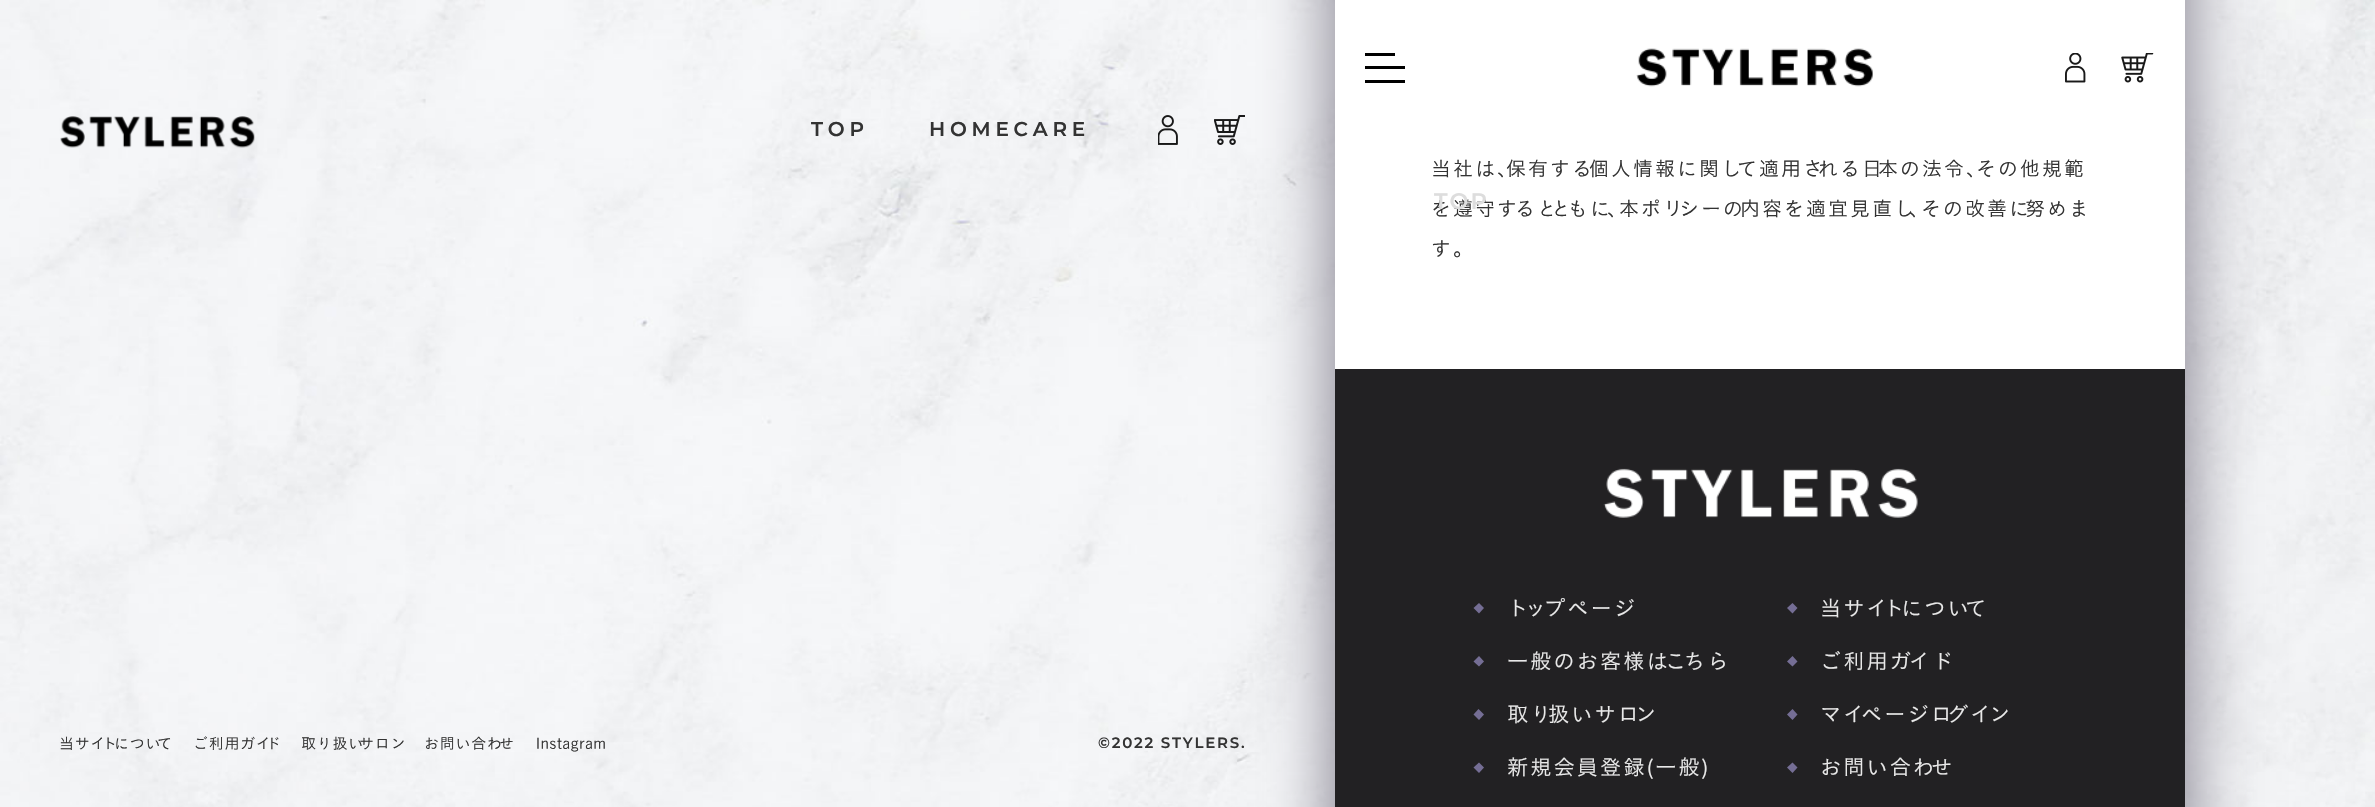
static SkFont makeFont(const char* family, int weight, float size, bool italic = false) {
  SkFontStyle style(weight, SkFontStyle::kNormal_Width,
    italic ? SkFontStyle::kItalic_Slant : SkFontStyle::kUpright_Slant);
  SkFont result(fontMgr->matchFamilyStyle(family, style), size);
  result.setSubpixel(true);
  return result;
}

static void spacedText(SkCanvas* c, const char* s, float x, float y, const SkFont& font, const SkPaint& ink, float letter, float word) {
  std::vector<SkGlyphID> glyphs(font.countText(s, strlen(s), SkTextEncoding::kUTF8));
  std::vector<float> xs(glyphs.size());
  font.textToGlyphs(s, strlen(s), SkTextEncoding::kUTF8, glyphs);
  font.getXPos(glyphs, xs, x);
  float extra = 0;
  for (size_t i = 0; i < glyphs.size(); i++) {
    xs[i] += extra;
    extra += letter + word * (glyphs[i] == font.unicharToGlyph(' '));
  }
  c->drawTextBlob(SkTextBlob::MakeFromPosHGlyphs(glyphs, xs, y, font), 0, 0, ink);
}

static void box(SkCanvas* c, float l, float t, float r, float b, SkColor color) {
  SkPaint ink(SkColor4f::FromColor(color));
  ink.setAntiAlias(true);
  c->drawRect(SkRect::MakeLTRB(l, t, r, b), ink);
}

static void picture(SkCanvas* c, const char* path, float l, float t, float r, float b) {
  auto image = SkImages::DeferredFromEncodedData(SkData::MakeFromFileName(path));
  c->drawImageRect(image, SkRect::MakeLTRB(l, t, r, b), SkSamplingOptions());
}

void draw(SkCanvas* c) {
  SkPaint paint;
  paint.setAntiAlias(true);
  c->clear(0xffffffff);
  picture(c, "img_01.png", 0, 0, 2375, 807);
  picture(c, "img_02.png", 60, 116, 255, 148);
  SkFont face1 = makeFont("Montserrat", 100, 20);
  paint.setColor(0xff333333);
  spacedText(c, "TOP", 811, 136, face1, paint, 4.75f, 0);
  spacedText(c, "HOMECARE", 929, 136, face1, paint, 4.75f, 0);
  picture(c, "img_03.png", 1158, 115, 1178, 145);
  picture(c, "img_04.png", 1214, 115, 1245, 145);
  SkFont face2 = makeFont("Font", 300, 15);
  spacedText(c, "当サイ", 59, 749, face2, paint, 0.75f, 0);
  spacedText(c, "ト", 102, 749, face2, paint, 0.75f, 0);
  spacedText(c, "につい", 114, 749, face2, paint, 0.75f, 0);
  spacedText(c, "て", 157, 749, face2, paint, 0.75f, 0);
  spacedText(c, "ご利用ガイ", 193, 749, face2, paint, 0.75f, 0);
  spacedText(c, "ド", 266, 749, face2, paint, 0.75f, 0);
  spacedText(c, "取り扱い", 301, 749, face2, paint, 0.75f, 0);
  spacedText(c, "サロン", 359, 749, face2, paint, 0.75f, 0);
  spacedText(c, "お問い合わ", 424, 749, face2, paint, 0.75f, 0);
  spacedText(c, "せ", 499, 749, face2, paint, 0.75f, 0);
  spacedText(c, "Instagram", 536, 749, face2, paint, 0.75f, 0);
  SkFont face3 = makeFont("Montserrat", 100, 15);
  spacedText(c, "©2022 STYLERS.", 1098, 748, face3, paint, 1.75f, 0);
  paint.setColor(0xff797584);
  paint.setMaskFilter(SkMaskFilter::MakeBlur(kNormal_SkBlurStyle, 35));
  c->drawRect(SkRect::MakeLTRB(1335, -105, 2185, 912), paint);
  paint.setMaskFilter(nullptr);
  box(c, 1335, 0, 2185, 369, 0xffffffff);
  SkFont face4 = makeFont("Font", 300, 20);
  paint.setColor(0xff333333);
  spacedText(c, "当社は、", 1431, 176, face4, paint, 2, 0);
  spacedText(c, "保有する", 1506, 176, face4, paint, 2, 0);
  spacedText(c, "個人情報に関し", 1589, 176, face4, paint, 2, 0);
  spacedText(c, "て適用さ", 1737, 176, face4, paint, 2, 0);
  spacedText(c, "れる日", 1818, 176, face4, paint, 2, 0);
  spacedText(c, "本の法令、", 1878, 176, face4, paint, 2, 0);
  spacedText(c, "その他規範", 1976, 176, face4, paint, 2, 0);
  spacedText(c, "を遵守す", 1431, 216, face4, paint, 2, 0);
  spacedText(c, "ると", 1515, 216, face4, paint, 2, 0);
  spacedText(c, "と", 1551, 216, face4, paint, 2, 0);
  spacedText(c, "もに", 1568, 216, face4, paint, 2, 0);
  spacedText(c, "、", 1607, 216, face4, paint, 2, 0);
  spacedText(c, "本ポリ", 1619, 216, face4, paint, 2, 0);
  spacedText(c, "シーの", 1679, 216, face4, paint, 2, 0);
  spacedText(c, "内容を適宜見直し", 1740, 216, face4, paint, 2, 0);
  spacedText(c, "、", 1909, 216, face4, paint, 2, 0);
  spacedText(c, "その改善に", 1921, 216, face4, paint, 2, 0);
  spacedText(c, "努めま", 2025, 216, face4, paint, 2, 0);
  spacedText(c, "す。", 1431, 256, face4, paint, 2, 0);
  box(c, 1335, 369, 2185, 807, 0xff222123);
  picture(c, "img_05.png", 1603, 468, 1918, 518);
  paint.setColor(0xff756e95);
  c->drawPath(SkPathBuilder().moveTo(1479, 603).lineTo(1484, 608).lineTo(1479, 613.5f).lineTo(1473.5f, 608).close().detach(), paint);
  SkFont face5 = makeFont("Font", 300, 21.25f);
  paint.setColor(0xffe9e9e9);
  spacedText(c, "ト", 1507, 616, face5, paint, 2, 0);
  spacedText(c, "ッ", 1525, 616, face5, paint, 2, 0);
  spacedText(c, "プページ", 1544, 616, face5, paint, 2, 0);
  paint.setColor(0xff756e95);
  c->drawPath(SkPathBuilder().moveTo(1792.5f, 603).lineTo(1797.5f, 608).lineTo(1792.5f, 613.5f).lineTo(1787, 608).close().detach(), paint);
  paint.setColor(0xffe9e9e9);
  spacedText(c, "当サイ", 1820, 616, face5, paint, 2, 0);
  spacedText(c, "ト", 1883, 616, face5, paint, 2, 0);
  spacedText(c, "につい", 1901, 616, face5, paint, 2, 0);
  spacedText(c, "て", 1965, 616, face5, paint, 2, 0);
  paint.setColor(0xff756e95);
  c->drawPath(SkPathBuilder().moveTo(1479, 656).lineTo(1484, 661.5f).lineTo(1479, 666.5f).lineTo(1473.5f, 661.5f).close().detach(), paint);
  paint.setColor(0xffe9e9e9);
  spacedText(c, "⼀般のお客様は", 1507, 669, face5, paint, 2, 0);
  spacedText(c, "こ", 1665, 669, face5, paint, 2, 0);
  spacedText(c, "ちら", 1684, 669, face5, paint, 2, 0);
  paint.setColor(0xff756e95);
  c->drawPath(SkPathBuilder().moveTo(1792.5f, 656).lineTo(1797.5f, 661.5f).lineTo(1792.5f, 666.5f).lineTo(1787, 661.5f).close().detach(), paint);
  paint.setColor(0xffe9e9e9);
  spacedText(c, "ご利用ガ", 1820, 669, face5, paint, 2, 0);
  spacedText(c, "イド", 1909, 669, face5, paint, 2, 0);
  paint.setColor(0xff756e95);
  c->drawPath(SkPathBuilder().moveTo(1478.5f, 709).lineTo(1484, 714.5f).lineTo(1479, 720).lineTo(1473.5f, 714.5f).close().detach(), paint);
  paint.setColor(0xffe9e9e9);
  spacedText(c, "取り", 1507, 722, face5, paint, 2, 0);
  spacedText(c, "扱いサロ", 1548, 722, face5, paint, 2, 0);
  spacedText(c, "ン", 1635, 722, face5, paint, 2, 0);
  paint.setColor(0xff756e95);
  c->drawPath(SkPathBuilder().moveTo(1792.5f, 709).lineTo(1797.5f, 714.5f).lineTo(1792.5f, 720).lineTo(1787, 714.5f).close().detach(), paint);
  paint.setColor(0xffe9e9e9);
  spacedText(c, "マイ", 1820, 722, face5, paint, 2, 0);
  spacedText(c, "ページロ", 1861, 722, face5, paint, 2, 0);
  spacedText(c, "グイ", 1947, 722, face5, paint, 2, 0);
  spacedText(c, "ン", 1989, 722, face5, paint, 2, 0);
  paint.setColor(0xff756e95);
  c->drawPath(SkPathBuilder().moveTo(1479, 762.5f).lineTo(1484, 767.5f).lineTo(1479, 773).lineTo(1473.5f, 767.5f).close().detach(), paint);
  paint.setColor(0xffe9e9e9);
  spacedText(c, "新規会員登録(⼀般)", 1507, 775, face5, paint, 2, 0);
  paint.setColor(0xff756e95);
  c->drawPath(SkPathBuilder().moveTo(1792.5f, 762.5f).lineTo(1797.5f, 767.5f).lineTo(1792.5f, 773).lineTo(1787, 767.5f).close().detach(), paint);
  paint.setColor(0xffe9e9e9);
  spacedText(c, "お問い合わ", 1820, 775, face5, paint, 2, 0);
  spacedText(c, "せ", 1931, 775, face5, paint, 2, 0);
  box(c, 1365, 53, 1395, 56, 0xff000000);
  box(c, 1365, 66, 1405, 69, 0xff000000);
  box(c, 1365, 80, 1405, 83, 0xff000000);
  picture(c, "img_06.png", 1636, 48, 1873, 87);
  picture(c, "img_07.png", 2065, 53, 2086, 83);
  picture(c, "img_08.png", 2121, 53, 2154, 83);
  SkFont face6 = makeFont("Montserrat", 100, 22.5f);
  paint.setColor(0xffdddddd);
  spacedText(c, "TOP", 1434, 209, face6, paint, 2, 0);
}
